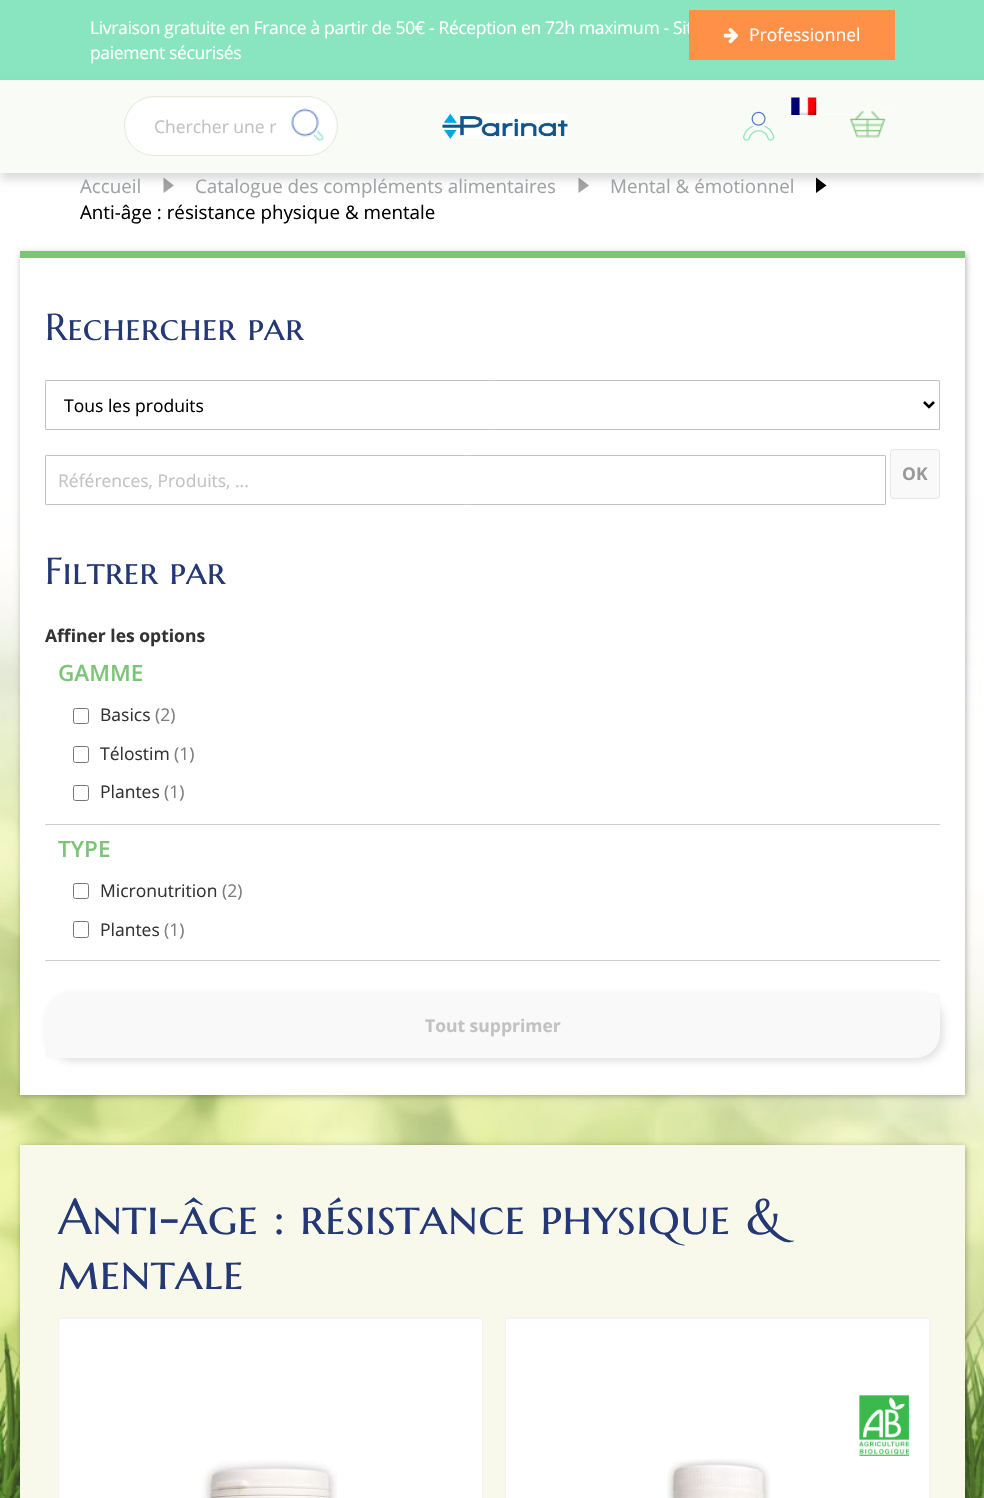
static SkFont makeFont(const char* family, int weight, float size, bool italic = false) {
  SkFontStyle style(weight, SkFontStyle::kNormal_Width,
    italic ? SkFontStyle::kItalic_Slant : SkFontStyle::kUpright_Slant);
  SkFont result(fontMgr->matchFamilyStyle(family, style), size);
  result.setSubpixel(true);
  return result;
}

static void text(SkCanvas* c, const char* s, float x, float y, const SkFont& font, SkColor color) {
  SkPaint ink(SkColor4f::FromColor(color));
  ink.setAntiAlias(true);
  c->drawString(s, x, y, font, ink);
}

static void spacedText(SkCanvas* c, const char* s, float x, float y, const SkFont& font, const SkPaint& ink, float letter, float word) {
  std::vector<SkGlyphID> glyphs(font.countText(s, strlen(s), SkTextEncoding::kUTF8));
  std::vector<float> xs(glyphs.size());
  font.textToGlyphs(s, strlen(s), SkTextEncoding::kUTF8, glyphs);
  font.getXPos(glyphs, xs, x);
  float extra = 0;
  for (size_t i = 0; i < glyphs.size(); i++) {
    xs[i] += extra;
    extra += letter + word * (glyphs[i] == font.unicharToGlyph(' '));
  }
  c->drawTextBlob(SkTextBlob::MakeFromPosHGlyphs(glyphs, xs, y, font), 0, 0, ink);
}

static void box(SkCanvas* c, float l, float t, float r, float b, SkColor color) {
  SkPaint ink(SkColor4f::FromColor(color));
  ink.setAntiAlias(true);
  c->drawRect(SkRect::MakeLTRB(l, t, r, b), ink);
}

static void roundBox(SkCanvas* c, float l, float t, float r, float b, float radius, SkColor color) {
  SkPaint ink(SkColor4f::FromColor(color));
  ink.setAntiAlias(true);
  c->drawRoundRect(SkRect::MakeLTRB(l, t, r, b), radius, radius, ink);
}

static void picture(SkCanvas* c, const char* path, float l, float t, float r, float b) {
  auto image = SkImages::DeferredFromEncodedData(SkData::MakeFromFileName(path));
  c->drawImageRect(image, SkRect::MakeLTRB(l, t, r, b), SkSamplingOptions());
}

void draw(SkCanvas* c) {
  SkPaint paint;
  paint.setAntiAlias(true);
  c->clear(0xffffffff);
  picture(c, "img_01.png", 0, 495, 984, 1498);
  box(c, 0, 80, 984, 173, 0xfff9fbf7);
  box(c, 0, 0, 984, 80, 0xff88e5bf);
  SkFont face1 = makeFont("Open Sans", 400, 17.5f);
  paint.setColor(0xffffffff);
  spacedText(c, "Livraison gratuite en France à partir de 50€ - Réception en 72h maximum - Sit", 90, 34, face1, paint, -0.35f, 0);
  spacedText(c, "paiement sécurisés", 90, 59, face1, paint, -0.35f, 0);
  box(c, 689, 10, 895, 60, 0xffff9048);
  picture(c, "img_02.png", 723, 28, 739, 44);
  text(c, "Professionnel", 749, 41, face1, 0xffffffff);
  picture(c, "img_03.png", 791, 97, 817, 115);
  box(c, 823, 114, 875, 115, 0xffffffff);
  paint.setStyle(SkPaint::kStroke_Style);
  paint.setStrokeWidth(1.2f);
  paint.setStrokeCap(SkPaint::kRound_Cap);
  paint.setStrokeJoin(SkPaint::kRound_Join);
  c->drawPath(SkPathBuilder().moveTo(881, 106).cubicTo(885.5f, 112, 884.5f, 112, 889, 106).detach(), paint);
  paint.setStyle(SkPaint::kFill_Style);
  paint.setColor(0xffa3a3a3);
  c->drawPath(SkPathBuilder().moveTo(163.5f, 177.5f).lineTo(163.5f, 193).lineTo(174, 185.5f).close().detach(), paint);
  c->drawPath(SkPathBuilder().moveTo(578.5f, 177.5f).lineTo(578.5f, 193).lineTo(589, 185.5f).close().detach(), paint);
  paint.setColor(0xff000000);
  c->drawPath(SkPathBuilder().moveTo(816, 177.5f).lineTo(816, 193).lineTo(826.5f, 185.5f).close().detach(), paint);
  c->save();
  c->clipPath(SkPathBuilder(SkPathFillType::kEvenOdd).moveTo(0, 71).lineTo(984, 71).lineTo(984, 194).lineTo(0, 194).close().moveTo(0, 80).lineTo(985, 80).lineTo(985, 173).lineTo(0, 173).close().detach(), true);
  paint.setColor(0x26000000);
  paint.setMaskFilter(SkMaskFilter::MakeBlur(kNormal_SkBlurStyle, 4.5f));
  c->drawRect(SkRect::MakeLTRB(1, 86, 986, 179), paint);
  paint.setMaskFilter(nullptr);
  c->restore();
  roundBox(c, 125, 98, 336, 155, 28.5f, 0xffffffff);
  paint.setStyle(SkPaint::kStroke_Style);
  paint.setStrokeWidth(1);
  paint.setStrokeCap(SkPaint::kButt_Cap);
  paint.setStrokeJoin(SkPaint::kMiter_Join);
  paint.setColor(0xffe6eadc);
  c->drawRoundRect(SkRect::MakeLTRB(124.5f, 96.5f, 337.5f, 155.5f), 29.5f, 29.5f, paint);
  text(c, "Chercher une r", 154, 133, face1, 0xffc2c2c2);
  picture(c, "img_04.png", 291, 108, 324, 142);
  picture(c, "img_05.png", 442, 113, 568, 139);
  picture(c, "img_06.png", 743, 111, 775, 141);
  picture(c, "img_07.png", 850, 111, 886, 138);
  SkFont face2 = makeFont("Open Sans", 400, 18.75f);
  text(c, "Accueil", 80, 193, face2, 0xff9fa3a6);
  text(c, "Catalogue des compléments alimentaires", 195, 193, face2, 0xff9fa3a6);
  text(c, "Mental & émotionnel", 610, 193, face2, 0xff9fa3a6);
  text(c, "Anti-âge : résistance physique & mentale", 80, 219, face2, 0xff000000);
  paint.setStyle(SkPaint::kFill_Style);
  paint.setColor(0x4d000000);
  paint.setMaskFilter(SkMaskFilter::MakeBlur(kNormal_SkBlurStyle, 3));
  c->drawRect(SkRect::MakeLTRB(21, 253, 966, 1096), paint);
  paint.setMaskFilter(nullptr);
  box(c, 20, 258, 965, 1095, 0xffffffff);
  box(c, 20, 251, 965, 258, 0xff7cc576);
  SkFont face3 = makeFont("Marcellus SC", 400, 37.5f);
  text(c, "Rechercher par", 45, 340, face3, 0xff243875);
  paint.setStyle(SkPaint::kStroke_Style);
  paint.setColor(0xffc2c2c2);
  c->drawRoundRect(SkRect::MakeLTRB(45.5f, 380.5f, 939.5f, 429.5f), 0.5f, 0.5f, paint);
  paint.setStrokeWidth(2.5f);
  paint.setColor(0xff000000);
  c->drawPath(SkPathBuilder().moveTo(924, 402).lineTo(929, 407).lineTo(934, 402).detach(), paint);
  text(c, "Tous les produits", 64, 412, face1, 0xff000000);
  paint.setStrokeWidth(1);
  paint.setColor(0xffc2c2c2);
  c->drawRoundRect(SkRect::MakeLTRB(45.5f, 455.5f, 885.5f, 504.5f), 0.5f, 0.5f, paint);
  text(c, "Références, Produits, ...", 58, 487, face1, 0xffc2c2c2);
  paint.setStyle(SkPaint::kFill_Style);
  paint.setColor(0xfff9f9f9);
  c->drawRoundRect(SkRect::MakeLTRB(890.5f, 449.5f, 939.5f, 498.5f), 3.5f, 3.5f, paint);
  paint.setStyle(SkPaint::kStroke_Style);
  paint.setColor(0xffe6e6e6);
  c->drawRoundRect(SkRect::MakeLTRB(890.5f, 449.5f, 939.5f, 498.5f), 3.5f, 3.5f, paint);
  SkFont face4 = makeFont("Open Sans", 700, 17.5f);
  text(c, "OK", 902, 480, face4, 0xff999999);
  text(c, "Filtrer par", 45, 584, face3, 0xff243875);
  text(c, "Affiner les options", 45, 642, face4, 0xff333333);
  box(c, 45, 824, 940, 825, 0xffcccccc);
  SkFont face5 = makeFont("Open Sans", 600, 22.5f);
  text(c, "GAMME", 58, 681, face5, 0xff7cc576);
  paint.setColor(0xff767676);
  c->drawRoundRect(SkRect::MakeLTRB(73.5f, 708.5f, 88.5f, 723.5f), 2, 2, paint);
  text(c, "Basics", 100, 721, face1, 0xff333333);
  text(c, "(2)", 155, 721, face1, 0xff7d7d7d);
  c->drawRoundRect(SkRect::MakeLTRB(73.5f, 746.5f, 88.5f, 762.5f), 2, 2, paint);
  text(c, "Télostim", 100, 760, face1, 0xff333333);
  text(c, "(1)", 174, 760, face1, 0xff7d7d7d);
  c->drawRoundRect(SkRect::MakeLTRB(73.5f, 785.5f, 88.5f, 800.5f), 2, 2, paint);
  text(c, "Plantes", 100, 798, face1, 0xff333333);
  text(c, "(1)", 164, 798, face1, 0xff7d7d7d);
  box(c, 45, 960, 940, 961, 0xffcccccc);
  text(c, "TYPE", 58, 857, face5, 0xff7cc576);
  c->drawRoundRect(SkRect::MakeLTRB(73.5f, 883.5f, 88.5f, 898.5f), 2, 2, paint);
  text(c, "Micronutrition", 100, 897, face1, 0xff333333);
  text(c, "(2)", 222, 897, face1, 0xff7d7d7d);
  c->drawRoundRect(SkRect::MakeLTRB(73.5f, 921.5f, 88.5f, 937.5f), 2, 2, paint);
  text(c, "Plantes", 100, 936, face1, 0xff333333);
  text(c, "(1)", 164, 936, face1, 0xff7d7d7d);
  paint.setStyle(SkPaint::kFill_Style);
  paint.setColor(0x40808080);
  paint.setMaskFilter(SkMaskFilter::MakeBlur(kNormal_SkBlurStyle, 4.5f));
  c->drawRoundRect(SkRect::MakeLTRB(48, 996, 943, 1061), 25, 25, paint);
  paint.setMaskFilter(nullptr);
  paint.setColor(0xfff9f9f9);
  c->drawPath(SkPathBuilder().moveTo(70, 993).lineTo(936, 993).cubicTo(938, 993, 940, 995, 940, 997).lineTo(940, 1033).cubicTo(940, 1047, 929, 1058, 915, 1058).lineTo(49, 1058).cubicTo(47, 1058, 45, 1056, 45, 1054).lineTo(45, 1018).cubicTo(45, 1004, 56, 993, 70, 993).close().detach(), paint);
  text(c, "Tout supprimer", 425, 1032, face4, 0xffc2c2c2);
  paint.setColor(0x4d000000);
  paint.setMaskFilter(SkMaskFilter::MakeBlur(kNormal_SkBlurStyle, 3));
  c->drawRect(SkRect::MakeLTRB(21, 1146, 966, 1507), paint);
  paint.setMaskFilter(nullptr);
  box(c, 20, 1145, 965, 1498, 0xfff8f9eb);
  SkFont face6 = makeFont("Marcellus SC", 400, 50);
  text(c, "Anti-âge : résistance physique &", 58, 1234, face6, 0xff243875);
  text(c, "mentale", 58, 1289, face6, 0xff243875);
  paint.setColor(0xffffffff);
  c->drawRect(SkRect::MakeLTRB(58.5f, 1318.5f, 482.5f, 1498.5f), paint);
  paint.setStyle(SkPaint::kStroke_Style);
  paint.setColor(0xfff2f2f2);
  c->drawRect(SkRect::MakeLTRB(58.5f, 1318.5f, 482.5f, 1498.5f), paint);
  picture(c, "img_08.png", 201, 1460, 337, 1498);
  paint.setStyle(SkPaint::kFill_Style);
  paint.setColor(0xffffffff);
  c->drawRect(SkRect::MakeLTRB(505.5f, 1318.5f, 929.5f, 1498.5f), paint);
  paint.setStyle(SkPaint::kStroke_Style);
  paint.setColor(0xfff2f2f2);
  c->drawRect(SkRect::MakeLTRB(505.5f, 1318.5f, 929.5f, 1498.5f), paint);
  picture(c, "img_09.png", 859, 1395, 910, 1456);
  picture(c, "img_10.png", 667, 1459, 770, 1498);
}
